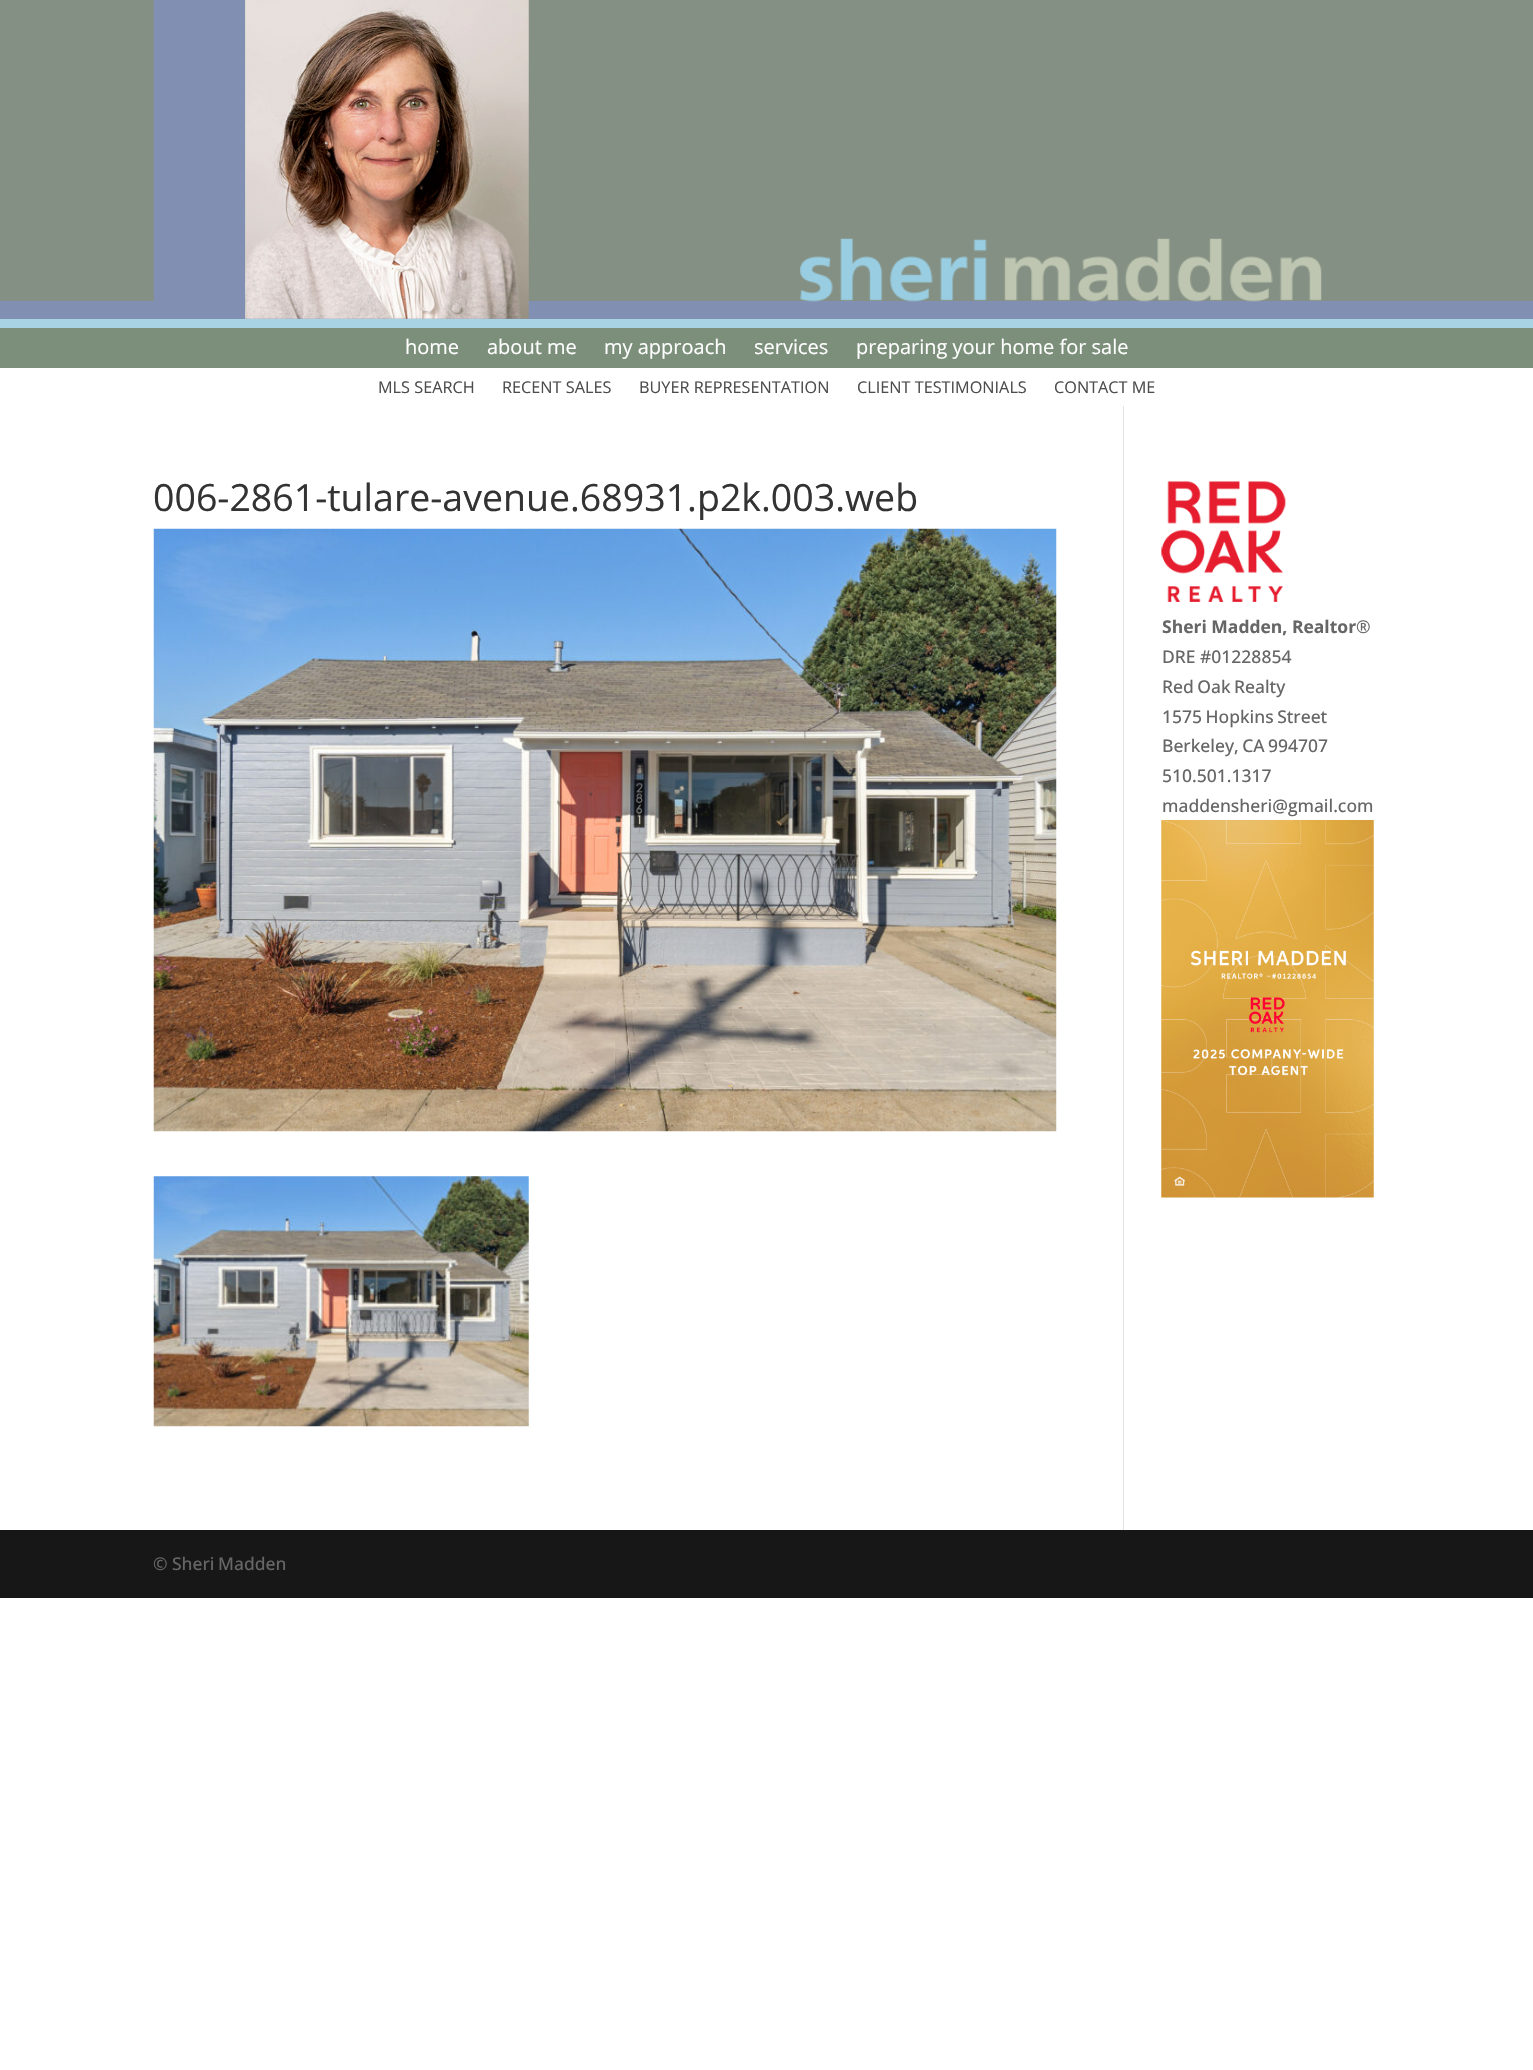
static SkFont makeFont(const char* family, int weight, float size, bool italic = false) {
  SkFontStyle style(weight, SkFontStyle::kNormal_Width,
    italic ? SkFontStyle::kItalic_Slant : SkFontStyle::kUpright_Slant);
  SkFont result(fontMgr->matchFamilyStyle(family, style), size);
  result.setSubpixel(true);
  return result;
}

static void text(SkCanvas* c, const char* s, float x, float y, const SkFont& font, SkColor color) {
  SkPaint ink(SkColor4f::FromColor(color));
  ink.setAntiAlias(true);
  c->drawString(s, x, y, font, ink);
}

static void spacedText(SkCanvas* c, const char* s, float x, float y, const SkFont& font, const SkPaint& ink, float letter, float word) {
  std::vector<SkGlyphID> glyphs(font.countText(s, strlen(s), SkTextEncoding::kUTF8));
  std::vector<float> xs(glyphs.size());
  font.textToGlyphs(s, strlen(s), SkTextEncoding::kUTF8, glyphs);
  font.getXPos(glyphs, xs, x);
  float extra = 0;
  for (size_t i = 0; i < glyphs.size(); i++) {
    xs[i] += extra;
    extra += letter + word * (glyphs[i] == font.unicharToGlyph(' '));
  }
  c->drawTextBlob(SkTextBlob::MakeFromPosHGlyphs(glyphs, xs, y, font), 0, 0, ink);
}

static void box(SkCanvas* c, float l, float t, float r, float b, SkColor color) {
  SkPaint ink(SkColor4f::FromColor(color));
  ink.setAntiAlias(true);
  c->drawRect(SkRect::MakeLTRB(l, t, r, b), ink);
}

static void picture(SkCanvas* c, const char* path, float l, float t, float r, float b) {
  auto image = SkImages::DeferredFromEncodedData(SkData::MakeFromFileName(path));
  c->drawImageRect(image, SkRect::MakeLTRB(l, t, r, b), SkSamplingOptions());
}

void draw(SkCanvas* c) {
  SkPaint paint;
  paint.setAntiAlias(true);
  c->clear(0xffffffff);
  box(c, 0, 0, 1533, 301, 0xff849083);
  box(c, 0, 301, 1533, 319, 0xff808fb2);
  picture(c, "img_01.png", 153, 0, 529, 319);
  picture(c, "img_02.png", 800, 238, 1322, 302);
  box(c, 0, 319, 1533, 328, 0xffa8d3e4);
  box(c, 0, 328, 1533, 368, 0xff7b8f7a);
  SkFont face1 = makeFont("Open Sans", 400, 20);
  text(c, "home", 405, 354, face1, 0xffffffff);
  text(c, "about me", 487, 354, face1, 0xffffffff);
  text(c, "my approach", 604, 354, face1, 0xffffffff);
  text(c, "services", 754, 354, face1, 0xffffffff);
  text(c, "preparing your home for sale", 856, 354, face1, 0xffffffff);
  SkFont face2 = makeFont("Open Sans", 400, 16.25f);
  text(c, "MLS SEARCH", 378, 393, face2, 0xff4c4c4c);
  text(c, "RECENT SALES", 502, 393, face2, 0xff4c4c4c);
  text(c, "BUYER REPRESENTATION", 639, 393, face2, 0xff4c4c4c);
  text(c, "CLIENT TESTIMONIALS", 857, 393, face2, 0xff4c4c4c);
  text(c, "CONTACT ME", 1054, 393, face2, 0xff4c4c4c);
  box(c, 1123, 406, 1124, 1530, 0xffe2e2e2);
  SkFont face3 = makeFont("Open Sans", 400, 37.5f);
  text(c, "006-2861-tulare-avenue.68931.p2k.003.web", 153, 511, face3, 0xff333333);
  picture(c, "img_03.png", 153, 528, 1057, 1132);
  picture(c, "img_04.png", 153, 1176, 529, 1427);
  picture(c, "img_05.png", 1161, 481, 1286, 602);
  SkFont face4 = makeFont("Open Sans", 700, 17.5f);
  text(c, "Sheri Madden, Realtor", 1162, 633, face4, 0xff666666);
  SkFont face5 = makeFont("Open Sans", 500, 17.5f);
  text(c, "®", 1356, 633, face5, 0xff666666);
  text(c, "DRE #01228854", 1162, 663, face5, 0xff666666);
  paint.setColor(0xff666666);
  spacedText(c, "Red Oak Realty", 1162, 693, face5, paint, 0, -1);
  spacedText(c, "1575 Hopkins Street", 1162, 723, face5, paint, 0, -1);
  spacedText(c, "Berkeley, CA 994707", 1162, 752, face5, paint, 0, -1);
  text(c, "510.501.1317", 1162, 782, face5, 0xff666666);
  text(c, "maddensheri@gmail.com", 1162, 812, face5, 0xff666666);
  picture(c, "img_06.png", 1161, 820, 1374, 1198);
  box(c, 0, 1530, 1533, 1598, 0xff171717);
  text(c, "©", 153, 1570, face5, 0xff666666);
  spacedText(c, "Sheri Madden", 172, 1570, face5, paint, 0, -1);
}
